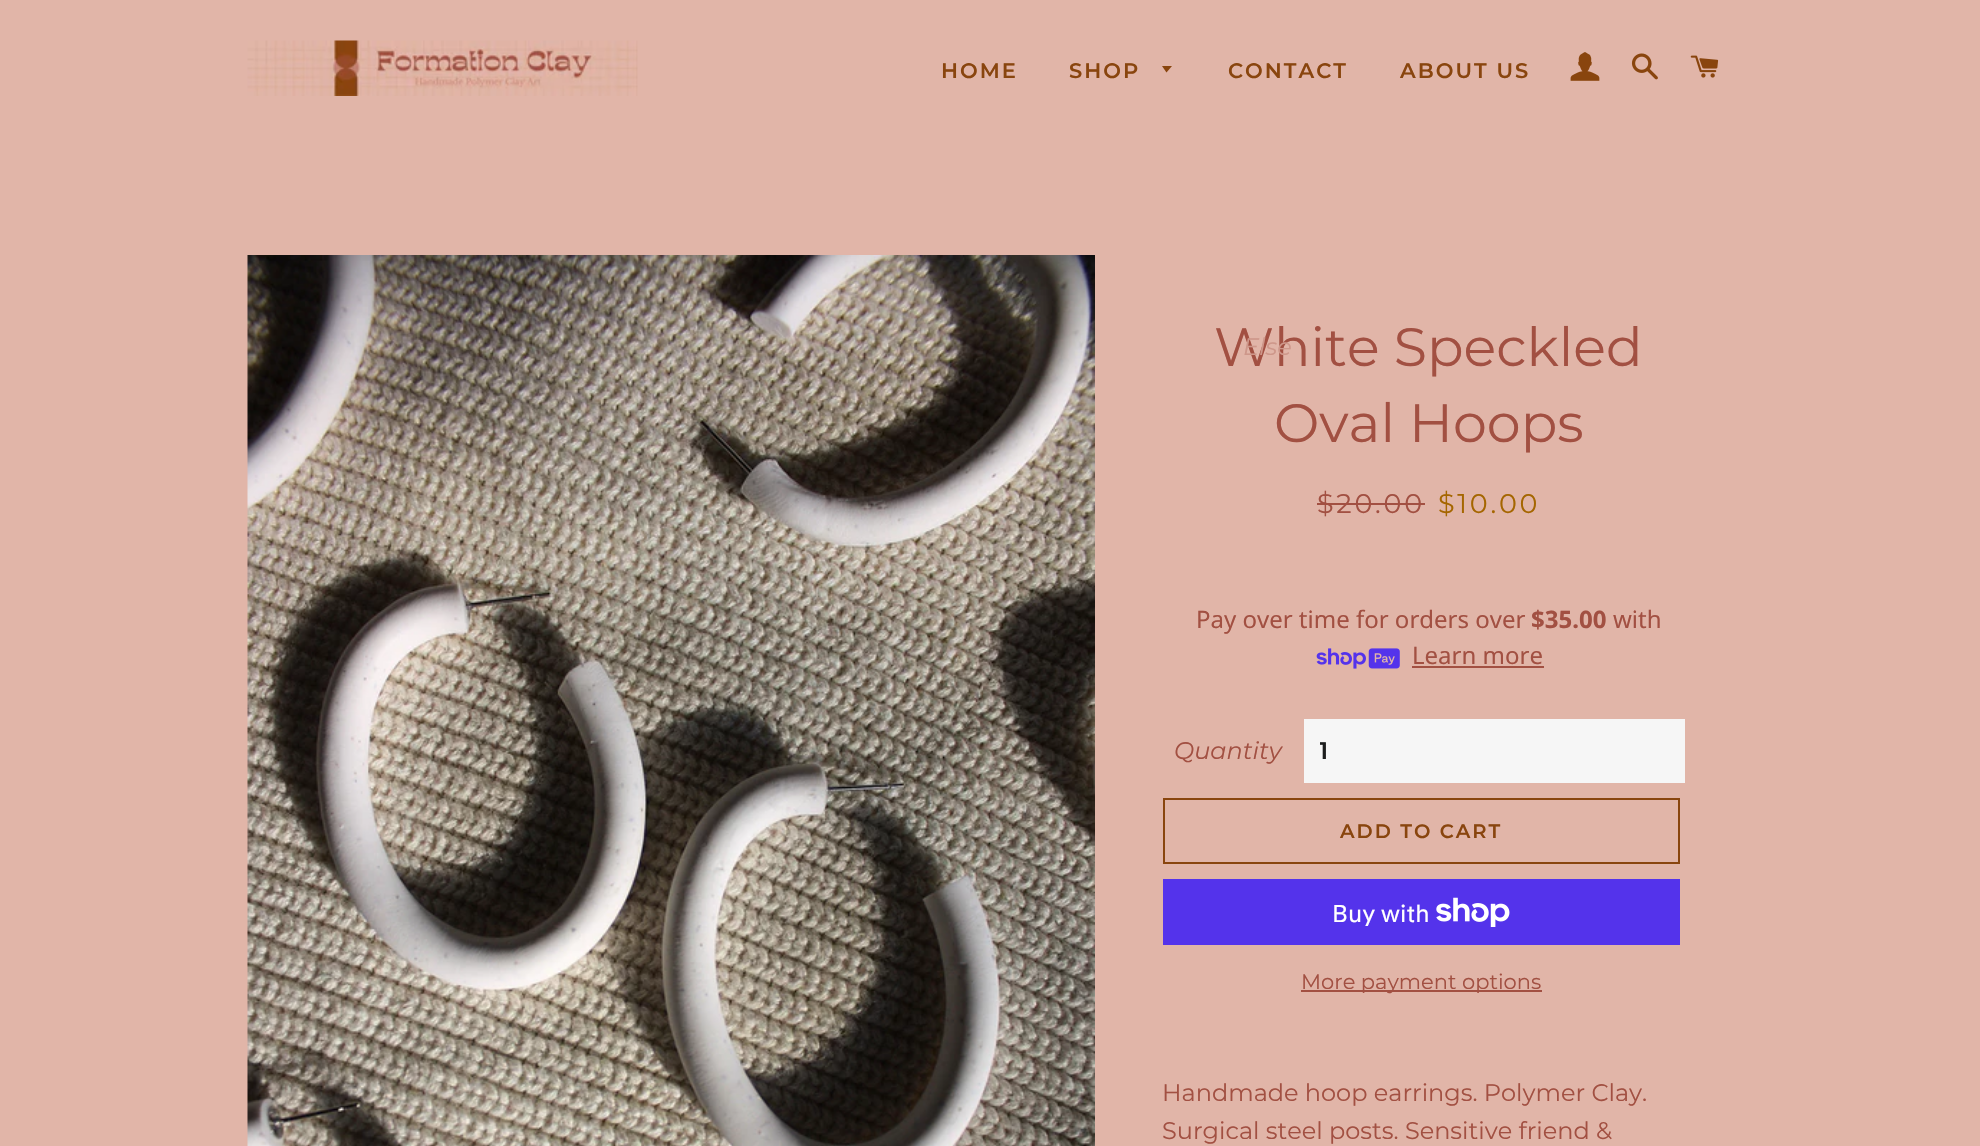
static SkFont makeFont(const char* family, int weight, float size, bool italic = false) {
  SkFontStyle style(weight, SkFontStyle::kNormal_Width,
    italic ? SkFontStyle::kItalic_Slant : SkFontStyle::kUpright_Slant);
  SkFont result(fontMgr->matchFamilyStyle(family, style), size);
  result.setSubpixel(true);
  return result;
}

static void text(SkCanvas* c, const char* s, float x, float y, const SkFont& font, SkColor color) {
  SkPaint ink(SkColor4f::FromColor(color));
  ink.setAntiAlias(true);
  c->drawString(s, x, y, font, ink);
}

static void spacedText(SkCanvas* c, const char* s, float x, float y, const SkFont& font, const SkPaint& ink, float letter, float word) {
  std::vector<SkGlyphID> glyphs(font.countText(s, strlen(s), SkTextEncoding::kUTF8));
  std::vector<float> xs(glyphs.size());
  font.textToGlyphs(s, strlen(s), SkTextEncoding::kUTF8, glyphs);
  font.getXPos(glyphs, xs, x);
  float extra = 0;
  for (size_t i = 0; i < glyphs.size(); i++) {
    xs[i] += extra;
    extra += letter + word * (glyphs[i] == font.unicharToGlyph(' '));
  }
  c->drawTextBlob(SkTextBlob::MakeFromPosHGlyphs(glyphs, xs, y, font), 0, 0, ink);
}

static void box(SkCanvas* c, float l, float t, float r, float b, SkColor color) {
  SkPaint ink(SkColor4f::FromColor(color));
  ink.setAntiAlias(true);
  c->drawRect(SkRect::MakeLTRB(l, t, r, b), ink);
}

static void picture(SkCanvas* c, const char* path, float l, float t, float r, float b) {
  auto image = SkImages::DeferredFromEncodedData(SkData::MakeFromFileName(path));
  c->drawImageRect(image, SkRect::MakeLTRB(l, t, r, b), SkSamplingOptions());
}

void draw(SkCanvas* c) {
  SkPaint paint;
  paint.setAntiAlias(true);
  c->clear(0xffe1b5a8);
  picture(c, "img_01.png", 247, 40, 638, 96);
  SkFont face1 = makeFont("Montserrat", 600, 21);
  paint.setColor(0xff89450e);
  spacedText(c, "HOME", 941, 78, face1, paint, 2, 0);
  spacedText(c, "SHOP", 1069, 78, face1, paint, 2, 0);
  c->drawPath(SkPathBuilder().moveTo(1162, 66).lineTo(1166.5f, 72.5f).lineTo(1172, 66).close().detach(), paint);
  SkFont face2 = makeFont("Montserrat", 400, 54);
  text(c, "White Speckled", 1214, 366, face2, 0xffa25042);
  SkFont face3 = makeFont("Montserrat", 400, 24, true);
  text(c, "Else", 1243, 355, face3, 0xffce978a);
  picture(c, "img_02.png", 1570, 52, 1600, 81);
  picture(c, "img_03.png", 1631, 53, 1658, 80);
  picture(c, "img_04.png", 1690, 55, 1719, 78);
  spacedText(c, "CONTACT", 1228, 78, face1, paint, 2, 0);
  spacedText(c, "ABOUT US", 1400, 78, face1, paint, 2, 0);
  picture(c, "img_05.png", 247, 255, 1095, 1146);
  text(c, "Oval Hoops", 1274, 442, face2, 0xffa25042);
  SkFont face4 = makeFont("Montserrat", 400, 27);
  paint.setColor(0xffa25042);
  spacedText(c, "$20.00", 1317, 513, face4, paint, 2.75f, 0);
  box(c, 1317, 503, 1425, 505, 0xffa25042);
  paint.setColor(0xffa56600);
  spacedText(c, "$10.00", 1438, 513, face4, paint, 2.75f, 0);
  SkFont face5 = makeFont("Noto Sans", 400, 24);
  text(c, "Pay over time for orders over", 1196, 628, face5, 0xffa25042);
  SkFont face6 = makeFont("Noto Sans", 700, 24);
  text(c, "$35.00", 1531, 628, face6, 0xffa25042);
  text(c, "with", 1613, 628, face5, 0xffa25042);
  picture(c, "img_06.png", 1316, 648, 1400, 669);
  text(c, "Learn more", 1412, 664, face5, 0xffa25042);
  box(c, 1412, 666, 1544, 668, 0xffa25042);
  text(c, "Quantity", 1174, 759, face3, 0xffa25042);
  box(c, 1304, 719, 1685, 783, 0xfff6f6f6);
  c->save();
  c->clipRect(SkRect::MakeLTRB(1320, 732, 1646, 770));
  SkFont face7 = makeFont("Montserrat", 600, 24);
  paint.setColor(0xff1c1d1d);
  spacedText(c, "1", 1319, 759, face7, paint, 2, 0);
  c->restore();
  paint.setStyle(SkPaint::kStroke_Style);
  paint.setStrokeWidth(2);
  paint.setColor(0xff89450e);
  c->drawRect(SkRect::MakeLTRB(1164, 799, 1679, 863), paint);
  SkFont face8 = makeFont("Montserrat", 600, 19.5f);
  paint.setStyle(SkPaint::kFill_Style);
  spacedText(c, "ADD TO CART", 1340, 838, face8, paint, 2, 0);
  box(c, 1163, 879, 1680, 945, 0xff5433eb);
  SkFont face9 = makeFont("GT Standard", 400, 24);
  text(c, "Buy with", 1332, 922, face9, 0xffffffff);
  picture(c, "img_07.png", 1436, 897, 1510, 927);
  box(c, 1301, 990, 1542, 992, 0xffa25042);
  SkFont face10 = makeFont("Montserrat", 400, 21);
  text(c, "More payment options", 1301, 989, face10, 0xffa25042);
  SkFont face11 = makeFont("Montserrat", 400, 24);
  text(c, "Handmade hoop earrings. Polymer Clay.", 1162, 1101, face11, 0xffa25042);
  text(c, "Surgical steel posts. Sensitive friend &", 1162, 1139, face11, 0xffa25042);
}
